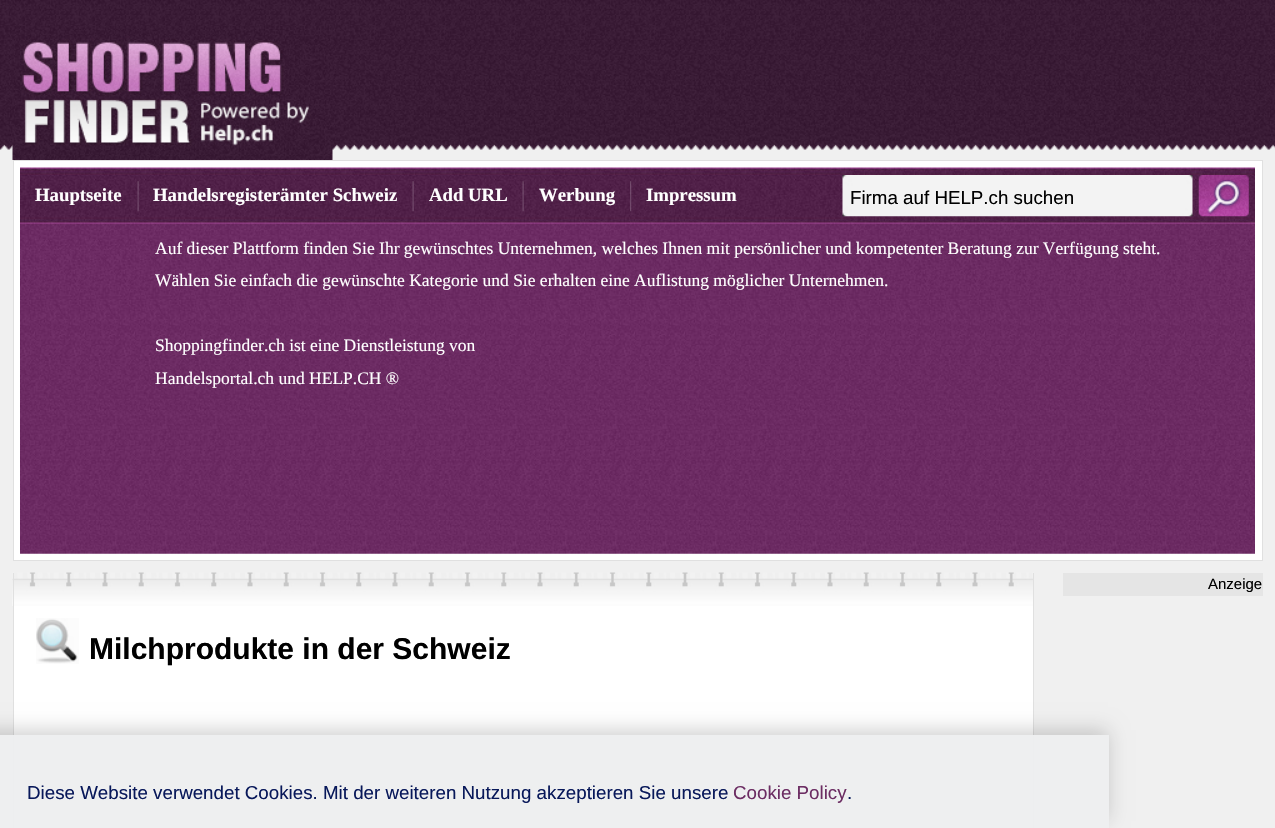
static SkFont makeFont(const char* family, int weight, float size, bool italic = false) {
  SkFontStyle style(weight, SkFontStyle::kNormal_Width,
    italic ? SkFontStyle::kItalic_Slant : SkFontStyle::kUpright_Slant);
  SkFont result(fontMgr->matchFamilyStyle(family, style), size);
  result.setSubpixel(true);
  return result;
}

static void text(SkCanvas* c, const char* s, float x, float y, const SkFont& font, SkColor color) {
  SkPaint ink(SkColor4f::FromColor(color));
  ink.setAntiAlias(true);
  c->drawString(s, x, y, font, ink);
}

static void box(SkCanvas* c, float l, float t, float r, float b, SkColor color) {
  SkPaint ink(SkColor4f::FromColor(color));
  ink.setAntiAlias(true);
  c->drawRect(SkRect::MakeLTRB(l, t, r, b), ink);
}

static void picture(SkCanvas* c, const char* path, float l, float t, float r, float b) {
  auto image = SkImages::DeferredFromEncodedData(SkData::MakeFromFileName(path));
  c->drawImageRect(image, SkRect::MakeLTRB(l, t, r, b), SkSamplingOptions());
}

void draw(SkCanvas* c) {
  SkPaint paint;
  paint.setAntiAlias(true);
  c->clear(0xfff0f0f0);
  picture(c, "img_01.png", 0, 0, 1275, 150);
  picture(c, "img_02.png", 12, 26, 333, 160);
  paint.setColor(0xffffffff);
  c->drawRect(SkRect::MakeLTRB(13.5f, 160.5f, 1262.5f, 560.5f), paint);
  paint.setStyle(SkPaint::kStroke_Style);
  paint.setStrokeWidth(1);
  paint.setColor(0xffe0e0e0);
  c->drawRect(SkRect::MakeLTRB(13.5f, 160.5f, 1262.5f, 560.5f), paint);
  picture(c, "img_03.png", 20, 167, 1255, 554);
  SkFont face1 = makeFont("Liberation Serif", 700, 18.75f);
  text(c, "Hauptseite", 35, 201, face1, 0xffffffff);
  picture(c, "img_04.png", 137, 181, 139, 212);
  text(c, "Handelsregisterämter Schweiz", 153, 201, face1, 0xffffffff);
  picture(c, "img_05.png", 412, 181, 414, 212);
  text(c, "Add URL", 429, 201, face1, 0xffffffff);
  picture(c, "img_06.png", 522, 181, 524, 212);
  text(c, "Werbung", 539, 201, face1, 0xffffffff);
  picture(c, "img_07.png", 630, 181, 632, 212);
  text(c, "Impressum", 646, 201, face1, 0xffffffff);
  picture(c, "img_08.png", 842, 175, 1193, 217);
  SkFont face2 = makeFont("Liberation Sans", 400, 18.75f);
  text(c, "Firma auf HELP.ch suchen", 850, 204, face2, 0xff000000);
  picture(c, "img_09.png", 1198, 175, 1249, 217);
  SkFont face3 = makeFont("Liberation Serif", 400, 17.5f);
  text(c, "Auf dieser Plattform finden Sie Ihr gewünschtes Unternehmen, welches Ihnen mit persönlicher und kompetenter Beratung zur Verfügung steht.", 155, 254, face3, 0xffffffff);
  text(c, "Wählen Sie einfach die gewünschte Kategorie und Sie erhalten eine Auflistung möglicher Unternehmen.", 155, 286, face3, 0xffffffff);
  text(c, "Shoppingfinder.ch ist eine Dienstleistung von", 155, 351, face3, 0xffffffff);
  text(c, "Handelsportal.ch und HELP.CH ®", 155, 384, face3, 0xffffffff);
  box(c, 1063, 573, 1263, 596, 0xffe5e5e5);
  SkFont face4 = makeFont("Liberation Sans", 400, 15);
  text(c, "Anzeige", 1208, 589, face4, 0xff000000);
  picture(c, "img_10.png", 12, 572, 1034, 606);
  box(c, 1033, 573, 1034, 828, 0xffe0e0e0);
  box(c, 13, 573, 14, 828, 0xffe0e0e0);
  box(c, 14, 606, 1033, 828, 0xffffffff);
  picture(c, "img_11.png", 36, 618, 79, 664);
  SkFont face5 = makeFont("Liberation Sans", 700, 30);
  text(c, "Milchprodukte in der Schweiz", 89, 659, face5, 0xff000000);
  c->save();
  c->clipPath(SkPathBuilder(SkPathFillType::kEvenOdd).moveTo(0, 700).lineTo(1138, 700).lineTo(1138, 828).lineTo(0, 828).close().moveTo(-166, 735).lineTo(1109, 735).lineTo(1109, 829).lineTo(-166, 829).close().detach(), true);
  paint.setStyle(SkPaint::kFill_Style);
  paint.setColor(0x2e000000);
  paint.setMaskFilter(SkMaskFilter::MakeBlur(kNormal_SkBlurStyle, 9.5f));
  c->drawRect(SkRect::MakeLTRB(-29, 730, 1108, 821), paint);
  paint.setMaskFilter(nullptr);
  c->restore();
  box(c, 0, 735, 1109, 828, 0xf7edeeef);
  text(c, "Diese Website verwendet Cookies. Mit der weiteren Nutzung akzeptieren Sie unsere", 27, 799, face2, 0xff08185a);
  text(c, "Cookie Policy", 733, 799, face2, 0xff6c2d63);
  text(c, ".", 847, 799, face2, 0xff08185a);
}
